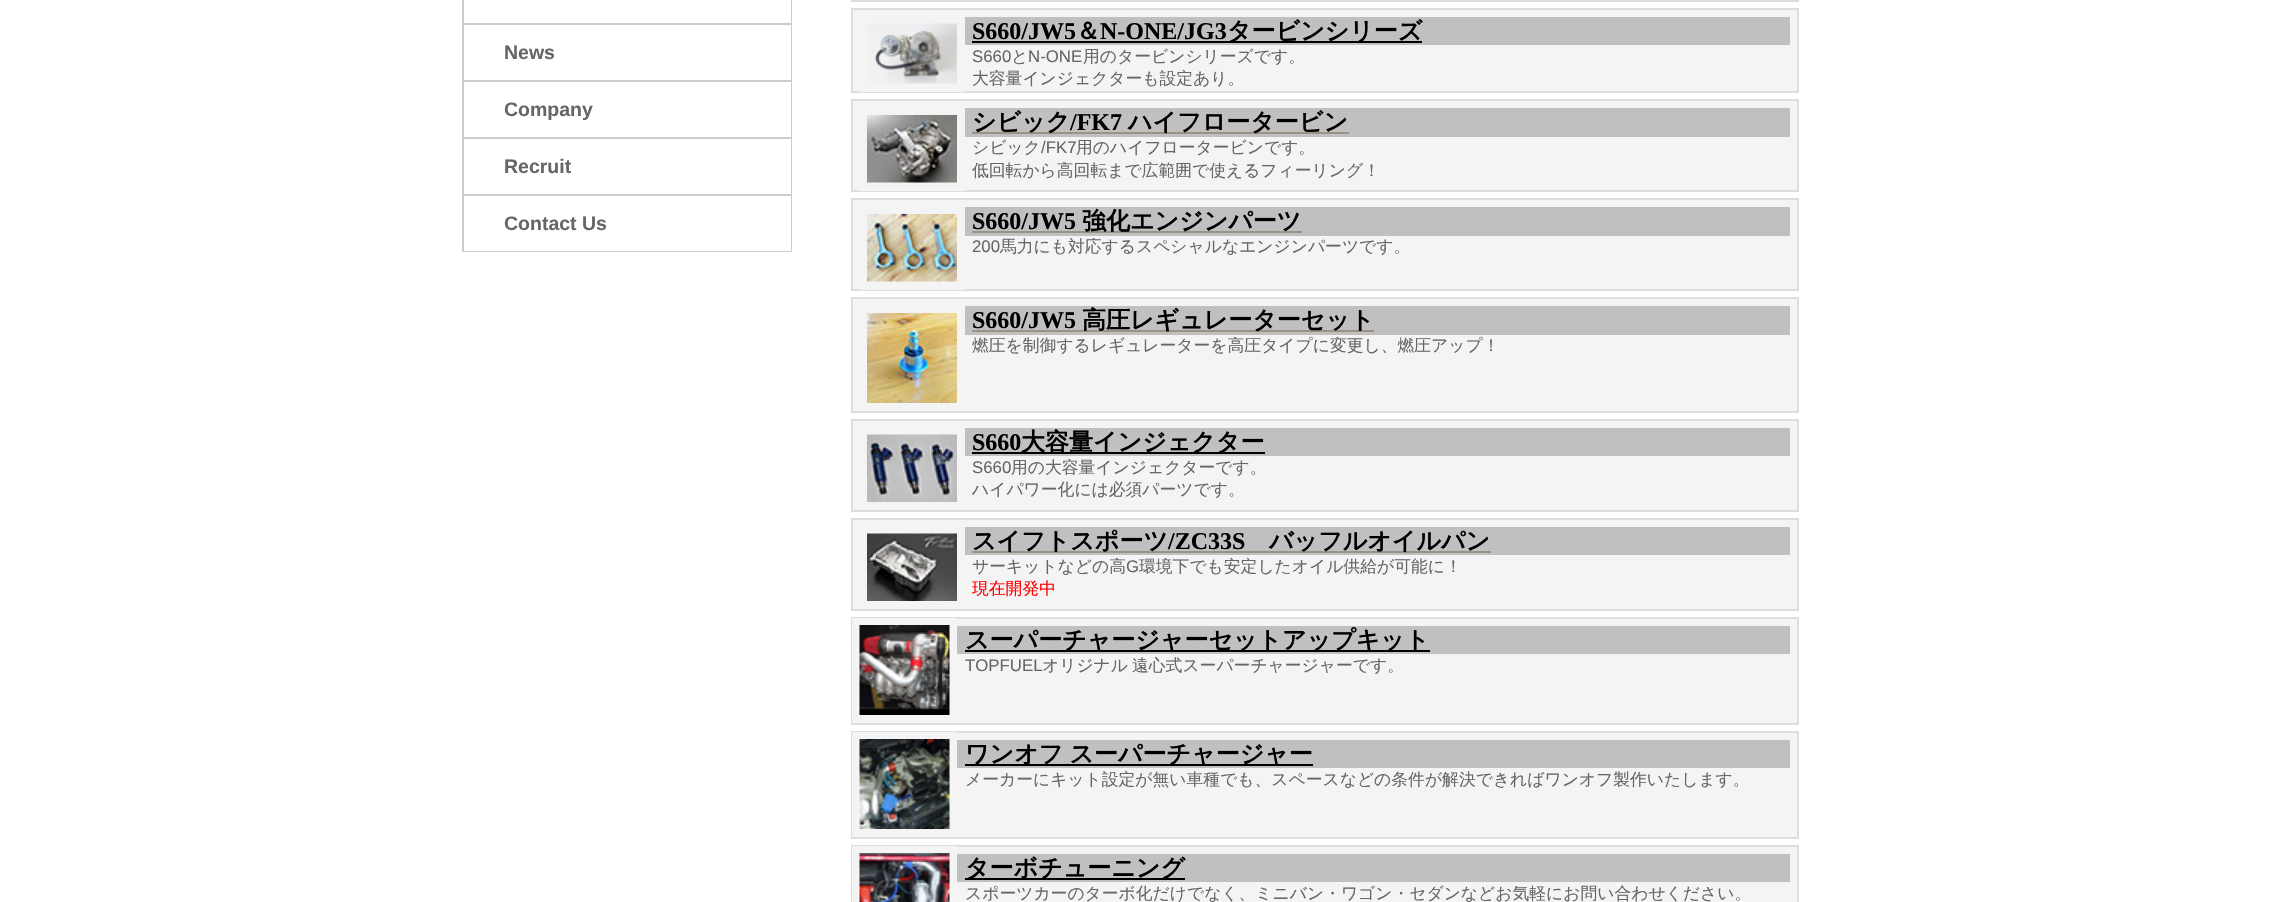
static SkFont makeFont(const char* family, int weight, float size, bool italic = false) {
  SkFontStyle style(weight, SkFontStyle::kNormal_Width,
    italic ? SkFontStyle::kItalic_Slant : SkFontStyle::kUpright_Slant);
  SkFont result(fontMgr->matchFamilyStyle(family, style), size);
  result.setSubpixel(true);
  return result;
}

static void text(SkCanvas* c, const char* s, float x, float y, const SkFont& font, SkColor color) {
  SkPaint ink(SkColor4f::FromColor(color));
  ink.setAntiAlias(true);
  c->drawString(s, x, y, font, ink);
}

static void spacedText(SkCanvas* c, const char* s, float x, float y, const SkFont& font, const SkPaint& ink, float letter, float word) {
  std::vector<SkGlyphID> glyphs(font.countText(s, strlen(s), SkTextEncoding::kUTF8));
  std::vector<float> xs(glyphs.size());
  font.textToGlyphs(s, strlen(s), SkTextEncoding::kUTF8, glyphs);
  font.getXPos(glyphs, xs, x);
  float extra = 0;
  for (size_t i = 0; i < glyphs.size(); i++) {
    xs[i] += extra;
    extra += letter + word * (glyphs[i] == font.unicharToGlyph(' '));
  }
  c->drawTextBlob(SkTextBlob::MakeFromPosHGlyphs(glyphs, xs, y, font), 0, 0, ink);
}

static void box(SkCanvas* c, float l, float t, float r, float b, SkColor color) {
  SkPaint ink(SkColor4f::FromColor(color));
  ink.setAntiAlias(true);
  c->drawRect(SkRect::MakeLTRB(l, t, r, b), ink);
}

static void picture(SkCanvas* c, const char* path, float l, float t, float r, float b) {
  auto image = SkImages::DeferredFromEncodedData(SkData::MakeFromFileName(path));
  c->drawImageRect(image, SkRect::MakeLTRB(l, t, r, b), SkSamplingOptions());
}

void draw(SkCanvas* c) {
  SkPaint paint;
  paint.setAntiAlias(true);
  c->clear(0xffffffff);
  box(c, 791, 0, 792, 24, 0xffcccccc);
  box(c, 462, 23, 792, 25, 0xffcccccc);
  box(c, 462, 0, 464, 24, 0xffcccccc);
  box(c, 791, 24, 792, 81, 0xffcccccc);
  box(c, 462, 80, 792, 82, 0xffcccccc);
  box(c, 462, 24, 464, 81, 0xffcccccc);
  SkFont face1 = makeFont("Liberation Sans", 700, 19.5f);
  text(c, "News", 504, 59, face1, 0xff666666);
  box(c, 791, 81, 792, 138, 0xffcccccc);
  box(c, 462, 137, 792, 139, 0xffcccccc);
  box(c, 462, 81, 464, 138, 0xffcccccc);
  text(c, "Company", 504, 116, face1, 0xff666666);
  box(c, 791, 138, 792, 195, 0xffcccccc);
  box(c, 462, 194, 792, 196, 0xffcccccc);
  box(c, 462, 138, 464, 195, 0xffcccccc);
  text(c, "Recruit", 504, 173, face1, 0xff666666);
  box(c, 791, 195, 792, 252, 0xffcccccc);
  box(c, 462, 251, 792, 252, 0xffcccccc);
  box(c, 462, 195, 464, 252, 0xffcccccc);
  text(c, "Contact Us", 504, 230, face1, 0xff666666);
  paint.setStyle(SkPaint::kStroke_Style);
  paint.setStrokeWidth(2);
  paint.setColor(0xffdddddd);
  c->drawRect(SkRect::MakeLTRB(852, -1, 1798, 1), paint);
  paint.setStyle(SkPaint::kFill_Style);
  paint.setColor(0xfff4f4f4);
  c->drawRect(SkRect::MakeLTRB(852, 9, 1798, 92), paint);
  paint.setStyle(SkPaint::kStroke_Style);
  paint.setColor(0xffdddddd);
  c->drawRect(SkRect::MakeLTRB(852, 9, 1798, 92), paint);
  box(c, 965, 17, 1790, 45, 0xffc0c0c0);
  box(c, 860, 91, 965, 92, 0xfff4f4f4);
  picture(c, "img_01.png", 867, 23, 957, 84);
  SkFont face2 = makeFont("Liberation Serif", 700, 24);
  text(c, "S660/JW5", 972, 39, face2, 0xff000000);
  box(c, 972, 41, 1422, 43, 0xff000000);
  SkFont face3 = makeFont("WenQuanYi Zen Hei", 700, 24);
  text(c, "＆", 1076, 39, face3, 0xff000000);
  text(c, "N-ONE/JG3", 1100, 39, face2, 0xff000000);
  text(c, "タービンシリーズ", 1227, 39, face3, 0xff000000);
  SkFont face4 = makeFont("Liberation Sans", 400, 16.8f);
  text(c, "S660", 972, 62, face4, 0xff666666);
  SkFont face5 = makeFont("WenQuanYi Zen Hei", 500, 16.8f);
  text(c, "と", 1011, 62, face5, 0xff666666);
  text(c, "N-ONE", 1028, 62, face4, 0xff666666);
  text(c, "用のタービンシリーズです。", 1083, 62, face5, 0xff666666);
  text(c, "大容量インジェクターも設定あり。", 972, 84, face5, 0xff666666);
  paint.setStyle(SkPaint::kFill_Style);
  paint.setColor(0xfff4f4f4);
  c->drawRect(SkRect::MakeLTRB(852, 100, 1798, 191), paint);
  paint.setStyle(SkPaint::kStroke_Style);
  paint.setColor(0xffdddddd);
  c->drawRect(SkRect::MakeLTRB(852, 100, 1798, 191), paint);
  box(c, 965, 108, 1790, 137, 0xffc0c0c0);
  box(c, 860, 190, 965, 191, 0xfff4f4f4);
  picture(c, "img_02.png", 867, 115, 957, 183);
  box(c, 972, 132, 1349, 134, 0xff9b9185);
  text(c, "シビック", 972, 130, face3, 0xff000000);
  text(c, "/FK7", 1070, 130, face2, 0xff000000);
  text(c, "ハイフロータービン", 1128, 130, face3, 0xff000000);
  text(c, "シビック", 972, 153, face5, 0xff666666);
  text(c, "/FK7", 1041, 153, face4, 0xff666666);
  text(c, "用のハイフロータービンです。", 1076, 153, face5, 0xff666666);
  text(c, "低回転から高回転まで広範囲で使えるフィーリング！", 972, 176, face5, 0xff666666);
  paint.setStyle(SkPaint::kFill_Style);
  paint.setColor(0xfff4f4f4);
  c->drawRect(SkRect::MakeLTRB(852, 199, 1798, 290), paint);
  paint.setStyle(SkPaint::kStroke_Style);
  paint.setColor(0xffdddddd);
  c->drawRect(SkRect::MakeLTRB(852, 199, 1798, 290), paint);
  box(c, 965, 207, 1790, 236, 0xffc0c0c0);
  box(c, 860, 289, 965, 290, 0xfff4f4f4);
  picture(c, "img_03.png", 867, 214, 957, 282);
  text(c, "S660/JW5", 972, 229, face2, 0xff000000);
  box(c, 972, 231, 1302, 233, 0xff9b9185);
  text(c, "強化エンジンパーツ", 1082, 229, face3, 0xff000000);
  text(c, "200", 972, 252, face4, 0xff666666);
  text(c, "馬力にも対応するスペシャルなエンジンパーツです。", 1000, 252, face5, 0xff666666);
  paint.setStyle(SkPaint::kFill_Style);
  paint.setColor(0xfff4f4f4);
  c->drawRect(SkRect::MakeLTRB(852, 298, 1798, 412), paint);
  paint.setStyle(SkPaint::kStroke_Style);
  paint.setColor(0xffdddddd);
  c->drawRect(SkRect::MakeLTRB(852, 298, 1798, 412), paint);
  box(c, 965, 306, 1790, 335, 0xffc0c0c0);
  picture(c, "img_04.png", 867, 313, 957, 403);
  text(c, "S660/JW5", 972, 328, face2, 0xff000000);
  box(c, 972, 330, 1374, 332, 0xff9b9185);
  text(c, "高圧レギュレーターセット", 1082, 328, face3, 0xff000000);
  text(c, "燃圧を制御するレギュレーターを高圧タイプに変更し、燃圧アップ！", 972, 351, face5, 0xff666666);
  paint.setStyle(SkPaint::kFill_Style);
  paint.setColor(0xfff4f4f4);
  c->drawRect(SkRect::MakeLTRB(852, 420, 1798, 511), paint);
  paint.setStyle(SkPaint::kStroke_Style);
  paint.setColor(0xffdddddd);
  c->drawRect(SkRect::MakeLTRB(852, 420, 1798, 511), paint);
  box(c, 965, 428, 1790, 456, 0xffc0c0c0);
  picture(c, "img_05.png", 867, 434, 957, 502);
  text(c, "S660", 972, 450, face2, 0xff000000);
  box(c, 972, 452, 1265, 454, 0xff000000);
  text(c, "大容量インジェクター", 1021, 450, face3, 0xff000000);
  text(c, "S660", 972, 473, face4, 0xff666666);
  text(c, "用の大容量インジェクターです。", 1011, 473, face5, 0xff666666);
  text(c, "ハイパワー化には必須パーツです。", 972, 495, face5, 0xff666666);
  paint.setStyle(SkPaint::kFill_Style);
  paint.setColor(0xfff4f4f4);
  c->drawRect(SkRect::MakeLTRB(852, 519, 1798, 610), paint);
  paint.setStyle(SkPaint::kStroke_Style);
  paint.setColor(0xffdddddd);
  c->drawRect(SkRect::MakeLTRB(852, 519, 1798, 610), paint);
  box(c, 965, 527, 1790, 555, 0xffc0c0c0);
  picture(c, "img_06.png", 867, 533, 957, 601);
  box(c, 972, 551, 1491, 553, 0xff9b9185);
  text(c, "スイフトスポーツ", 972, 549, face3, 0xff000000);
  text(c, "/ZC33S", 1168, 549, face2, 0xff000000);
  text(c, "バッフルオイルパン", 1269, 549, face3, 0xff000000);
  text(c, "サーキットなどの高", 972, 572, face5, 0xff666666);
  text(c, "G", 1126, 572, face4, 0xff666666);
  text(c, "環境下でも安定したオイル供給が可能に！", 1139, 572, face5, 0xff666666);
  text(c, "現在開発中", 972, 594, face5, 0xffff0000);
  box(c, 957, 619, 1797, 723, 0xfff4f4f4);
  c->drawRect(SkRect::MakeLTRB(852, 618, 1798, 724), paint);
  box(c, 852, 618, 957, 723, 0xfff4f4f4);
  picture(c, "img_07.png", 859, 625, 950, 715);
  box(c, 957, 626, 1790, 654, 0xffc0c0c0);
  box(c, 965, 650, 1430, 652, 0xff000000);
  text(c, "スーパーチャージャーセットアップキット", 965, 648, face3, 0xff000000);
  text(c, "TOPFUEL", 965, 671, face4, 0xff666666);
  paint.setStyle(SkPaint::kFill_Style);
  paint.setColor(0xff666666);
  spacedText(c, "オリジナル 遠心式スーパーチャージャーです。", 1042, 671, face5, paint, 0, -1);
  box(c, 957, 733, 1797, 837, 0xfff4f4f4);
  paint.setStyle(SkPaint::kStroke_Style);
  paint.setColor(0xffdddddd);
  c->drawRect(SkRect::MakeLTRB(852, 732, 1798, 838), paint);
  box(c, 852, 732, 957, 837, 0xfff4f4f4);
  picture(c, "img_08.png", 859, 739, 950, 829);
  box(c, 957, 740, 1790, 768, 0xffc0c0c0);
  box(c, 965, 764, 1313, 766, 0xff000000);
  paint.setStyle(SkPaint::kFill_Style);
  paint.setColor(0xff000000);
  spacedText(c, "ワンオフ スーパーチャージャー", 965, 762, face3, paint, 0, -1);
  text(c, "メーカーにキット設定が無い車種でも、スペースなどの条件が解決できればワンオフ製作いたします。", 965, 785, face5, 0xff666666);
  box(c, 957, 847, 1797, 902, 0xfff4f4f4);
  paint.setStyle(SkPaint::kStroke_Style);
  paint.setColor(0xffdddddd);
  c->drawRect(SkRect::MakeLTRB(852, 846, 1798, 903), paint);
  box(c, 852, 846, 957, 902, 0xfff4f4f4);
  picture(c, "img_09.png", 859, 853, 950, 902);
  box(c, 957, 854, 1790, 882, 0xffc0c0c0);
  box(c, 965, 878, 1185, 880, 0xff000000);
  text(c, "ターボチューニング", 965, 876, face3, 0xff000000);
  text(c, "スポーツカーのターボ化だけでなく、ミニバン・ワゴン・セダンなどお気軽にお問い合わせください。", 965, 899, face5, 0xff666666);
}
